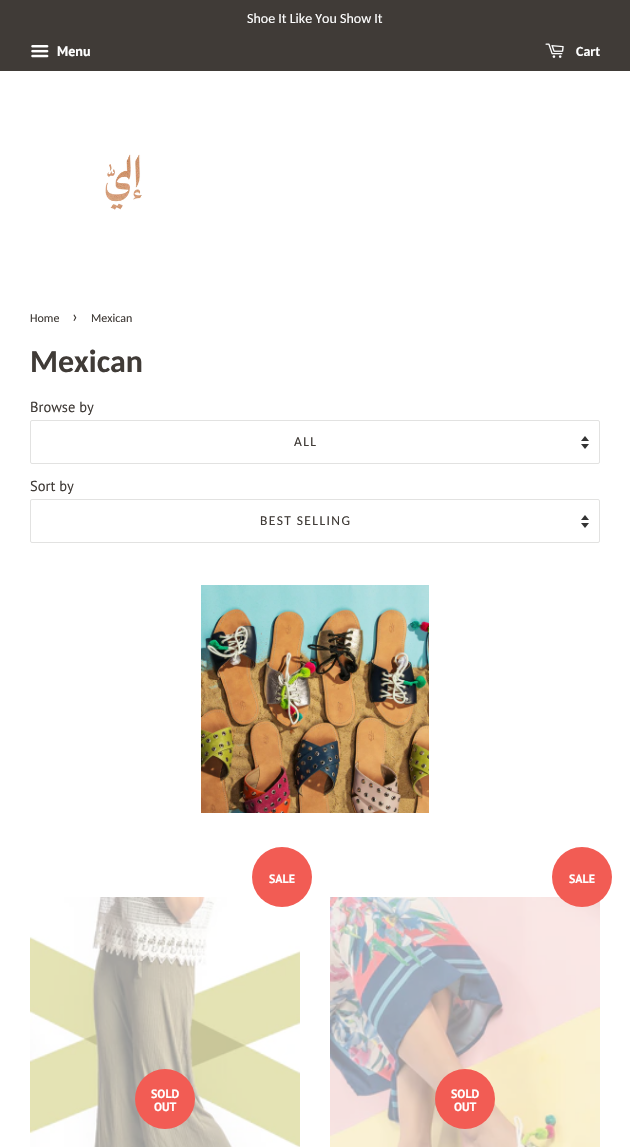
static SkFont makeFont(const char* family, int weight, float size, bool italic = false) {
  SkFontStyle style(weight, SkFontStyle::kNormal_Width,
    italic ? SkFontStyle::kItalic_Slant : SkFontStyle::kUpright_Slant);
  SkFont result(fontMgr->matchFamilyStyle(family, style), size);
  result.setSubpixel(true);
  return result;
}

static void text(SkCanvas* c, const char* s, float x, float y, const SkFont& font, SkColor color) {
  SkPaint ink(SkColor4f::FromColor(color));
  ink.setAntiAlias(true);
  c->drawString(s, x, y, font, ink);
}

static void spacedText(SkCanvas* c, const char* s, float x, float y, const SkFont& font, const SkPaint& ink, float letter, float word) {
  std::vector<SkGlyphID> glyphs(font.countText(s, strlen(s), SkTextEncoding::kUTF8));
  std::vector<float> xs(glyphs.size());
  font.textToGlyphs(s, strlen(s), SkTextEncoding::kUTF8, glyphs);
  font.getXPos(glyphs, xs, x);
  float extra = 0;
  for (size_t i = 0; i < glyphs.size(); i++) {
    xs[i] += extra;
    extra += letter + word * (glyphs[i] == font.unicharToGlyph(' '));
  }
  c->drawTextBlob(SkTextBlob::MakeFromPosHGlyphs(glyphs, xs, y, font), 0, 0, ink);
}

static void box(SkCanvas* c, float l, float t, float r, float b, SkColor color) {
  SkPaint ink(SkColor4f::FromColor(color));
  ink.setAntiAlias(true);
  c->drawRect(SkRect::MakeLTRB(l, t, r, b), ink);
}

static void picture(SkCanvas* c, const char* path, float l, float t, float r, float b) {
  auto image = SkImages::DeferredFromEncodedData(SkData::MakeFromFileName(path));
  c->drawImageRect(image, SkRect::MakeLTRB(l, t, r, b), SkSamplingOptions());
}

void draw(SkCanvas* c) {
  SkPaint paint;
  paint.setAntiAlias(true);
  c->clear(0xffffffff);
  box(c, 0, 0, 630, 71, 0xff403b37);
  SkFont face1 = makeFont("Carlito", 400, 14);
  text(c, "Shoe It Like You Show It", 247, 23, face1, 0xffffffff);
  picture(c, "img_01.png", 31, 45, 49, 58);
  SkFont face2 = makeFont("PT Sans", 700, 14);
  text(c, "Menu", 57, 56, face2, 0xffffffff);
  picture(c, "img_02.png", 545, 43, 564, 58);
  SkFont face3 = makeFont("Carlito", 700, 14);
  text(c, "Cart", 576, 56, face3, 0xffffffff);
  picture(c, "img_03.png", 105, 154, 142, 210);
  SkFont face4 = makeFont("Carlito", 400, 12);
  text(c, "Home", 30, 322, face4, 0xff403b37);
  SkFont face5 = makeFont("Carlito", 400, 17);
  text(c, "›", 72, 322, face5, 0xff403b37);
  text(c, "Mexican", 91, 322, face4, 0xff403b37);
  SkFont face6 = makeFont("Carlito", 700, 32);
  text(c, "Mexican", 30, 372, face6, 0xff403b37);
  SkFont face7 = makeFont("PT Sans", 400, 14.5f);
  text(c, "Browse by", 30, 412, face7, 0xff403b37);
  picture(c, "img_04.png", 581, 436, 589, 449);
  paint.setStyle(SkPaint::kStroke_Style);
  paint.setStrokeWidth(1);
  paint.setColor(0xffe2e2e1);
  c->drawRoundRect(SkRect::MakeLTRB(30.5f, 420.5f, 599.5f, 463.5f), 1.5f, 1.5f, paint);
  SkFont face8 = makeFont("Carlito", 400, 13.5f);
  paint.setStyle(SkPaint::kFill_Style);
  paint.setColor(0xff403b37);
  spacedText(c, "ALL", 294, 446, face8, paint, 1.4f, 0);
  text(c, "Sort by", 30, 491, face7, 0xff403b37);
  picture(c, "img_04.png", 581, 515, 589, 528);
  paint.setStyle(SkPaint::kStroke_Style);
  paint.setColor(0xffe2e2e1);
  c->drawRoundRect(SkRect::MakeLTRB(30.5f, 499.5f, 599.5f, 542.5f), 1.5f, 1.5f, paint);
  paint.setStyle(SkPaint::kFill_Style);
  paint.setColor(0xff403b37);
  spacedText(c, "BEST SELLING", 260, 525, face8, paint, 1.4f, 0);
  picture(c, "img_05.png", 201, 585, 429, 813);
  picture(c, "img_06.png", 30, 897, 300, 1147);
  paint.setColor(0xfff25c54);
  c->drawCircle(282, 877, 30, paint);
  SkFont face9 = makeFont("PT Sans", 700, 12);
  text(c, "SALE", 269, 883, face9, 0xffffffff);
  c->drawCircle(165, 1099, 30, paint);
  text(c, "SOLD", 151, 1098, face9, 0xffffffff);
  text(c, "OUT", 154, 1111, face9, 0xffffffff);
  picture(c, "img_07.png", 330, 897, 600, 1147);
  c->drawCircle(582, 877, 30, paint);
  text(c, "SALE", 569, 883, face9, 0xffffffff);
  c->drawCircle(465, 1099, 30, paint);
  text(c, "SOLD", 451, 1098, face9, 0xffffffff);
  text(c, "OUT", 454, 1111, face9, 0xffffffff);
}
